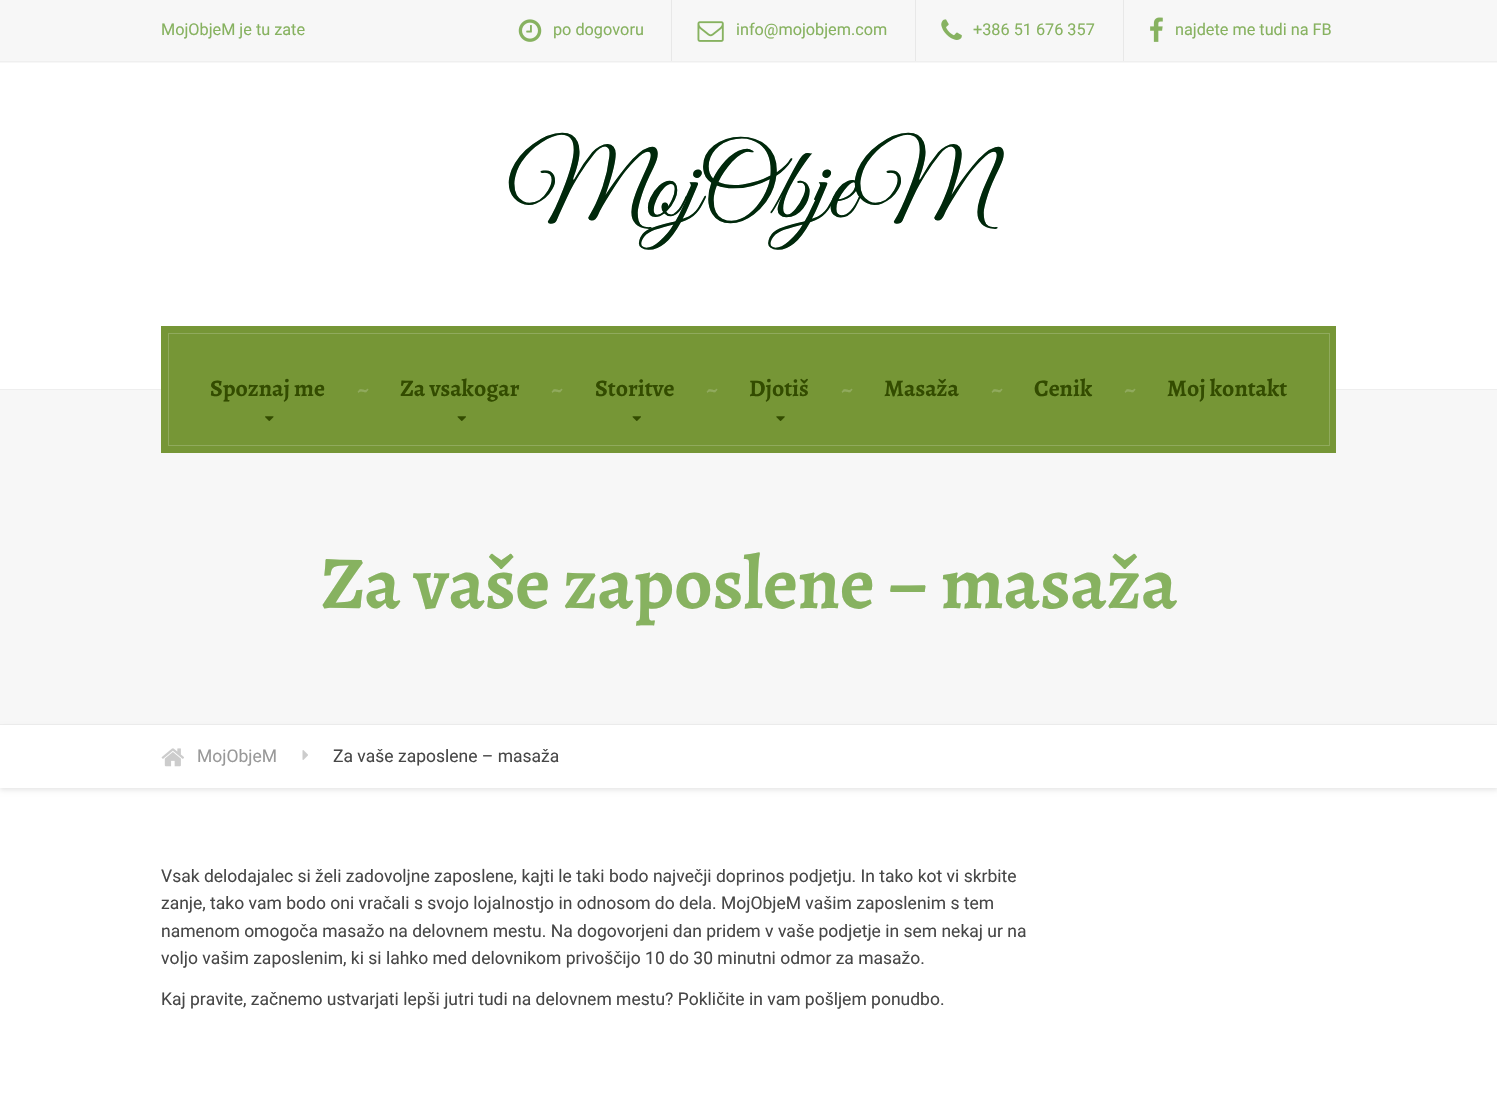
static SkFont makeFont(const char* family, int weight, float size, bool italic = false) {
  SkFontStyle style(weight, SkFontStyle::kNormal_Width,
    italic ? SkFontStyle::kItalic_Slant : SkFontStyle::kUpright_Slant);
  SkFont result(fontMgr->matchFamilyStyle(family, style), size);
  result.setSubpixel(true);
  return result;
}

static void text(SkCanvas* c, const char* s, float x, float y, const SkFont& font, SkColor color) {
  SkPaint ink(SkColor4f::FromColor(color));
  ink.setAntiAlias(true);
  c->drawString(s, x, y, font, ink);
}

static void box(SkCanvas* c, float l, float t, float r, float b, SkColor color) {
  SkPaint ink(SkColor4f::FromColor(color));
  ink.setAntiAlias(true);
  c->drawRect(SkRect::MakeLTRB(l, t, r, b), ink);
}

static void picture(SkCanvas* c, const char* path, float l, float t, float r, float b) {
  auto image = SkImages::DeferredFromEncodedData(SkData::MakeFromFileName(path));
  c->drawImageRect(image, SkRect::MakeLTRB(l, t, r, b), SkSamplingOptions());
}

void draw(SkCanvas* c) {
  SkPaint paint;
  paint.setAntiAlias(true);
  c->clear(0xffffffff);
  box(c, 0, 0, 1497, 63, 0xfff7f7f7);
  box(c, 0, 61, 1497, 62, 0xffefefef);
  SkFont face1 = makeFont("Roboto", 400, 16.25f);
  text(c, "MojObjeM je tu zate", 161, 35, face1, 0xff87b260);
  picture(c, "img_01.png", 518, 19, 542, 42);
  text(c, "po dogovoru", 553, 35, face1, 0xff87b260);
  box(c, 671, 0, 672, 61, 0xffe8e8e8);
  picture(c, "img_02.png", 697, 21, 724, 42);
  text(c, "info@mojobjem.com", 736, 35, face1, 0xff87b260);
  box(c, 915, 0, 916, 61, 0xffe8e8e8);
  picture(c, "img_03.png", 941, 19, 962, 40);
  text(c, "+386 51 676 357", 973, 35, face1, 0xff87b260);
  box(c, 1123, 0, 1124, 61, 0xffe8e8e8);
  picture(c, "img_04.png", 1150, 17, 1163, 42);
  text(c, "najdete me tudi na FB", 1175, 35, face1, 0xff87b260);
  SkFont face2 = makeFont("Great Vibes", 400, 103.75f);
  text(c, "MojObjeM", 507, 217, face2, 0xff00280b);
  box(c, 0, 390, 1497, 724, 0xfff7f7f7);
  box(c, 0, 389, 1497, 390, 0xffeeeeee);
  box(c, 161, 326, 1336, 453, 0xff769636);
  paint.setStyle(SkPaint::kStroke_Style);
  paint.setStrokeWidth(1);
  paint.setColor(0xff90aa5d);
  c->drawRect(SkRect::MakeLTRB(168.5f, 333.5f, 1329.5f, 445.5f), paint);
  SkFont face3 = makeFont("Alegreya", 700, 23.75f);
  text(c, "Spoznaj me", 210, 396, face3, 0xff334c00);
  text(c, "~", 357, 397, face3, 0xff90aa5d);
  picture(c, "img_05.png", 265, 416, 274, 421);
  text(c, "Za vsakogar", 400, 396, face3, 0xff334c00);
  text(c, "~", 551, 397, face3, 0xff90aa5d);
  picture(c, "img_06.png", 457, 416, 466, 421);
  text(c, "Storitve", 595, 396, face3, 0xff334c00);
  text(c, "~", 706, 397, face3, 0xff90aa5d);
  picture(c, "img_06.png", 632, 416, 641, 421);
  text(c, "Djotiš", 749, 396, face3, 0xff334c00);
  text(c, "~", 841, 397, face3, 0xff90aa5d);
  picture(c, "img_07.png", 776, 416, 785, 421);
  text(c, "Masaža", 884, 396, face3, 0xff334c00);
  text(c, "~", 991, 397, face3, 0xff90aa5d);
  text(c, "Cenik", 1034, 396, face3, 0xff334c00);
  text(c, "~", 1124, 397, face3, 0xff90aa5d);
  text(c, "Moj kontakt", 1167, 396, face3, 0xff334c00);
  box(c, 0, 724, 1497, 725, 0xffeeeeee);
  SkFont face4 = makeFont("Alegreya", 700, 75);
  text(c, "Za vaše zaposlene – masaža", 321, 608, face4, 0xff87b260);
  paint.setStyle(SkPaint::kFill_Style);
  paint.setColor(0x1a000000);
  paint.setMaskFilter(SkMaskFilter::MakeBlur(kNormal_SkBlurStyle, 2.5f));
  c->drawRect(SkRect::MakeLTRB(0, 728, 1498, 790), paint);
  paint.setMaskFilter(nullptr);
  box(c, 0, 725, 1497, 788, 0xffffffff);
  picture(c, "img_08.png", 161, 748, 184, 767);
  SkFont face5 = makeFont("Roboto", 400, 17.5f);
  text(c, "MojObjeM", 197, 762, face5, 0xff999999);
  picture(c, "img_09.png", 302, 750, 308, 760);
  text(c, "Za vaše zaposlene – masaža", 333, 762, face5, 0xff474747);
  text(c, "Vsak delodajalec si želi zadovoljne zaposlene, kajti le taki bodo največji doprinos podjetju. In tako kot vi skrbite", 161, 882, face5, 0xff474747);
  text(c, "zanje, tako vam bodo oni vračali s svojo lojalnostjo in odnosom do dela. MojObjeM vašim zaposlenim s tem", 161, 909, face5, 0xff474747);
  text(c, "namenom omogoča masažo na delovnem mestu. Na dogovorjeni dan pridem v vaše podjetje in sem nekaj ur na", 161, 937, face5, 0xff474747);
  text(c, "voljo vašim zaposlenim, ki si lahko med delovnikom privoščijo 10 do 30 minutni odmor za masažo.", 161, 964, face5, 0xff474747);
  text(c, "Kaj pravite, začnemo ustvarjati lepši jutri tudi na delovnem mestu? Pokličite in vam pošljem ponudbo.", 161, 1005, face5, 0xff474747);
}
